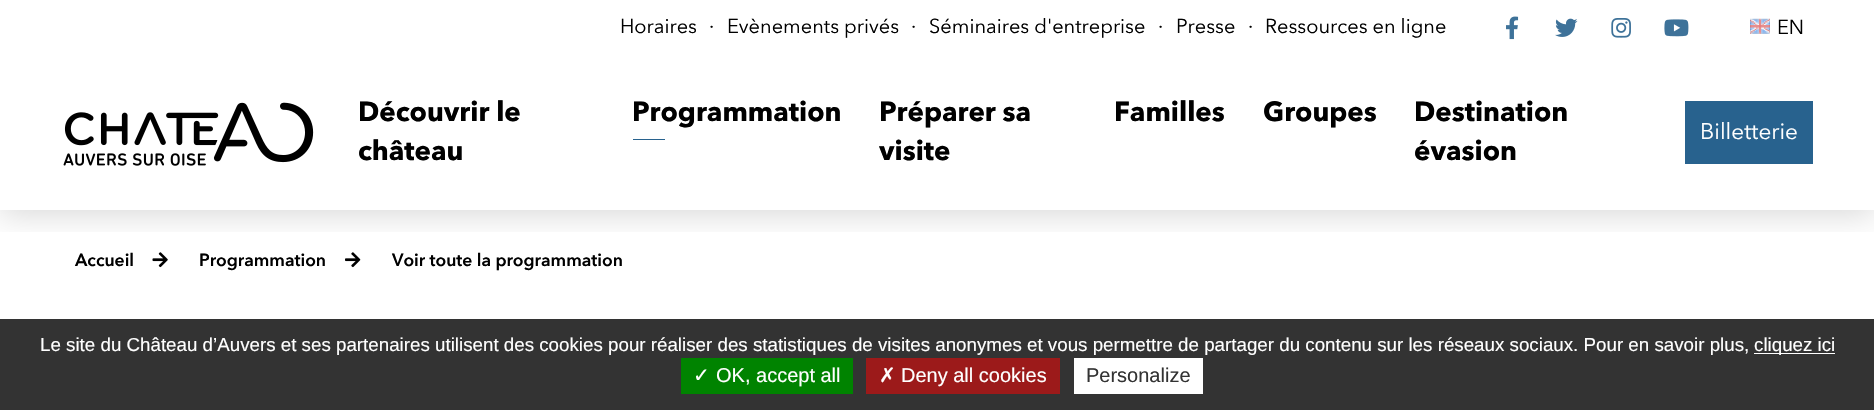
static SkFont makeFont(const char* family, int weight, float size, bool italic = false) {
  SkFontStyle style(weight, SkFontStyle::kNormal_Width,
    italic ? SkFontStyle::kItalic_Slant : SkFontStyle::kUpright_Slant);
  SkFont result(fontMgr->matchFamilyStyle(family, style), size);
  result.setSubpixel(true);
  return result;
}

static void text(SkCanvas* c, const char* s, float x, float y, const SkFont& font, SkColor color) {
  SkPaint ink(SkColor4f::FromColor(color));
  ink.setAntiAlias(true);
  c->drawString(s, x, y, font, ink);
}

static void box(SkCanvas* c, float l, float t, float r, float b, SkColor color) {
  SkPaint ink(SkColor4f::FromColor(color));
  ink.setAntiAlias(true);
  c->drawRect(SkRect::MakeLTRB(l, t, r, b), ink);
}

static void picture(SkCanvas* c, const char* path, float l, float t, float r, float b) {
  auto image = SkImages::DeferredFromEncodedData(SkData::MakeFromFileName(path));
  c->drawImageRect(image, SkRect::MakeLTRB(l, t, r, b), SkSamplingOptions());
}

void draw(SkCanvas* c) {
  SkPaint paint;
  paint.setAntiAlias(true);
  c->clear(0xffffffff);
  picture(c, "img_07.png", 152, 252, 168, 268);
  picture(c, "img_08.png", 345, 252, 361, 268);
  c->save();
  c->clipRect(SkRect::MakeLTRB(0, 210, 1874, 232));
  paint.setColor(0x26000000);
  paint.setMaskFilter(SkMaskFilter::MakeBlur(kNormal_SkBlurStyle, 15));
  c->drawRect(SkRect::MakeLTRB(0, 5, 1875, 215), paint);
  paint.setMaskFilter(nullptr);
  c->restore();
  SkFont face1 = makeFont("Avenir Next", 400, 20);
  text(c, "Horaires", 620, 33, face1, 0xff000000);
  text(c, "·", 709, 33, face1, 0xff000000);
  text(c, "Evènements privés", 727, 33, face1, 0xff000000);
  text(c, "·", 911, 33, face1, 0xff000000);
  text(c, "Séminaires d'entreprise", 929, 33, face1, 0xff000000);
  text(c, "·", 1158, 33, face1, 0xff000000);
  text(c, "Presse", 1176, 33, face1, 0xff000000);
  text(c, "·", 1248, 33, face1, 0xff000000);
  text(c, "Ressources en ligne", 1265, 33, face1, 0xff000000);
  picture(c, "img_01.png", 1506, 16, 1519, 40);
  picture(c, "img_02.png", 1555, 18, 1578, 37);
  picture(c, "img_03.png", 1611, 18, 1631, 38);
  picture(c, "img_04.png", 1664, 19, 1689, 37);
  picture(c, "img_05.png", 1750, 18, 1770, 34);
  text(c, "EN", 1777, 34, face1, 0xff000000);
  picture(c, "img_06.png", 63, 102, 314, 166);
  SkFont face2 = makeFont("Avenir Next", 700, 27.5f);
  text(c, "Découvrir le", 358, 121, face2, 0xff000000);
  text(c, "château", 358, 160, face2, 0xff000000);
  text(c, "Programmation", 632, 121, face2, 0xff000000);
  box(c, 633, 139, 665, 140, 0xff28628e);
  text(c, "Préparer sa", 879, 121, face2, 0xff000000);
  text(c, "visite", 879, 160, face2, 0xff000000);
  text(c, "Familles", 1114, 121, face2, 0xff000000);
  text(c, "Groupes", 1263, 121, face2, 0xff000000);
  text(c, "Destination", 1414, 121, face2, 0xff000000);
  text(c, "évasion", 1414, 160, face2, 0xff000000);
  box(c, 1685, 101, 1813, 164, 0xff28628e);
  SkFont face3 = makeFont("Avenir Next", 400, 22.5f);
  text(c, "Billetterie", 1700, 139, face3, 0xffffffff);
  SkFont face4 = makeFont("Avenir Next", 600, 17.5f);
  text(c, "Accueil", 75, 266, face4, 0xff000000);
  text(c, "Programmation", 199, 266, face4, 0xff000000);
  text(c, "Voir toute la programmation", 392, 266, face4, 0xff000000);
  box(c, 0, 319, 1874, 410, 0xff333333);
  SkFont face5 = makeFont("Liberation Sans", 400, 18.75f);
  text(c, "Le site du Château d’Auvers et ses partenaires utilisent des cookies pour réaliser des statistiques de visites anonymes et vous permettre de partager du contenu sur les réseaux sociaux. Pour en savoir plus,", 40, 351, face5, 0xffffffff);
  box(c, 1754, 353, 1835, 354, 0xffffffff);
  text(c, "cliquez ici", 1754, 351, face5, 0xffffffff);
  box(c, 681, 358, 853, 394, 0xff008300);
  SkFont face6 = makeFont("DejaVu Sans", 400, 20);
  text(c, "✓", 693, 382, face6, 0xffffffff);
  SkFont face7 = makeFont("Liberation Sans", 400, 20);
  text(c, "OK, accept all", 716, 382, face7, 0xffffffff);
  box(c, 866, 358, 1060, 394, 0xff9c1a1a);
  text(c, "✗", 879, 382, face6, 0xffffffff);
  text(c, "Deny all cookies", 901, 382, face7, 0xffffffff);
  box(c, 1074, 358, 1203, 394, 0xffffffff);
  text(c, "Personalize", 1086, 382, face7, 0xff333333);
}
